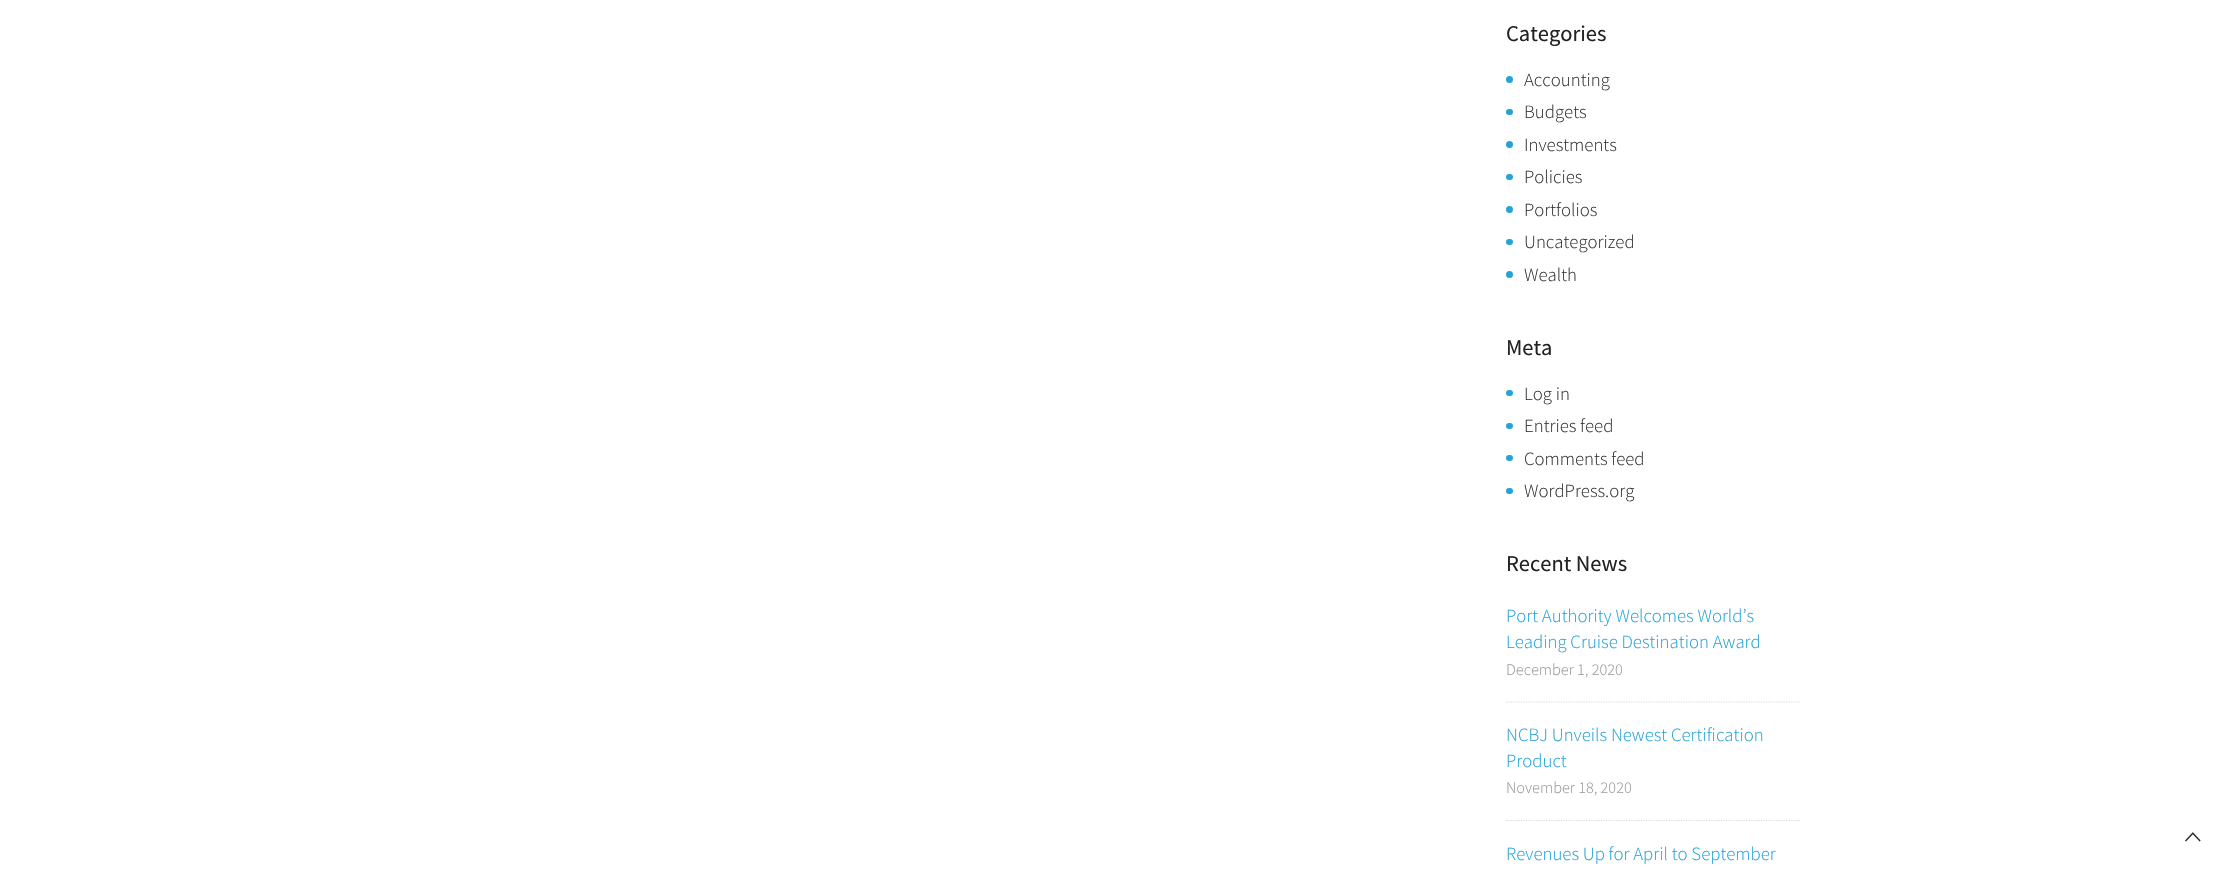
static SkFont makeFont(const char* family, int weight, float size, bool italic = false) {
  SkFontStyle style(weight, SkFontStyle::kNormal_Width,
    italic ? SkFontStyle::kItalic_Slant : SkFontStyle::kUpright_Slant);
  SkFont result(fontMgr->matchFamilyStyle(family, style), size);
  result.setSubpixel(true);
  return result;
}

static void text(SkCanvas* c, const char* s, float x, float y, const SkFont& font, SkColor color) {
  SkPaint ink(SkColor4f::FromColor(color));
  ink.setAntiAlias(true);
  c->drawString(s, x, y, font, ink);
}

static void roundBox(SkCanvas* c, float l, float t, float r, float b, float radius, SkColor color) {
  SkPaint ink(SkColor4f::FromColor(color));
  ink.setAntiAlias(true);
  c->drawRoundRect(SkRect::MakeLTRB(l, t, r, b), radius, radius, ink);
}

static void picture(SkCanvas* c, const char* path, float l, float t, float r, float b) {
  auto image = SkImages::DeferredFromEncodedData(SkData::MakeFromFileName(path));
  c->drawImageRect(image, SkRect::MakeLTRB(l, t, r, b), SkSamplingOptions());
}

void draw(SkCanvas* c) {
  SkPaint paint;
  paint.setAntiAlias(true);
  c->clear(0xffffffff);
  SkFont face1 = makeFont("Source Sans Pro", 400, 22.5f);
  text(c, "Categories", 1506, 41, face1, 0xff222222);
  paint.setColor(0xff24a3d8);
  c->drawCircle(1509.5f, 79.5f, 3.5f, paint);
  SkFont face2 = makeFont("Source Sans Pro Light", 300, 18.75f);
  text(c, "Accounting", 1524, 86, face2, 0xff353535);
  roundBox(c, 1506, 109, 1513, 115, 3, 0xff24a3d8);
  text(c, "Budgets", 1524, 118, face2, 0xff353535);
  c->drawCircle(1509.5f, 144.5f, 3.5f, paint);
  text(c, "Investments", 1524, 151, face2, 0xff353535);
  roundBox(c, 1506, 174, 1513, 180, 3, 0xff24a3d8);
  text(c, "Policies", 1524, 183, face2, 0xff353535);
  c->drawCircle(1509.5f, 209.5f, 3.5f, paint);
  text(c, "Portfolios", 1524, 216, face2, 0xff353535);
  roundBox(c, 1506, 239, 1513, 245, 3, 0xff24a3d8);
  text(c, "Uncategorized", 1524, 248, face2, 0xff353535);
  c->drawCircle(1509.5f, 274.5f, 3.5f, paint);
  text(c, "Wealth", 1524, 281, face2, 0xff353535);
  text(c, "Meta", 1506, 355, face1, 0xff222222);
  roundBox(c, 1506, 390, 1513, 396, 3, 0xff24a3d8);
  text(c, "Log in", 1524, 400, face2, 0xff353535);
  roundBox(c, 1506, 423, 1513, 429, 3, 0xff24a3d8);
  text(c, "Entries feed", 1524, 432, face2, 0xff353535);
  roundBox(c, 1506, 455, 1513, 461, 3, 0xff24a3d8);
  text(c, "Comments feed", 1524, 465, face2, 0xff353535);
  roundBox(c, 1506, 488, 1513, 494, 3, 0xff24a3d8);
  text(c, "WordPress.org", 1524, 497, face2, 0xff353535);
  text(c, "Recent News", 1506, 571, face1, 0xff222222);
  paint.setStyle(SkPaint::kStroke_Style);
  paint.setStrokeWidth(1.2f);
  paint.setColor(0xffd9d9d9);
  paint.setPathEffect(SkDashPathEffect::Make({{1.25f, 1.25f}}, 0));
  c->drawPath(SkPathBuilder().moveTo(1506, 702).lineTo(1800, 702).detach(), paint);
  paint.setPathEffect(nullptr);
  text(c, "Port Authority Welcomes World’s", 1506, 622, face2, 0xff24a3d8);
  text(c, "Leading Cruise Destination Award", 1506, 648, face2, 0xff24a3d8);
  SkFont face3 = makeFont("Source Sans Pro Light", 300, 16.25f);
  text(c, "December 1, 2020", 1506, 675, face3, 0xff999999);
  paint.setPathEffect(SkDashPathEffect::Make({{1.25f, 1.25f}}, 0));
  c->drawPath(SkPathBuilder().moveTo(1506, 820.5f).lineTo(1800, 820.5f).detach(), paint);
  paint.setPathEffect(nullptr);
  text(c, "NCBJ Unveils Newest Certification", 1506, 741, face2, 0xff24a3d8);
  text(c, "Product", 1506, 767, face2, 0xff24a3d8);
  text(c, "November 18, 2020", 1506, 793, face3, 0xff999999);
  text(c, "Revenues Up for April to September", 1506, 860, face2, 0xff24a3d8);
  picture(c, "img_01.png", 2185, 832, 2201, 842);
}
